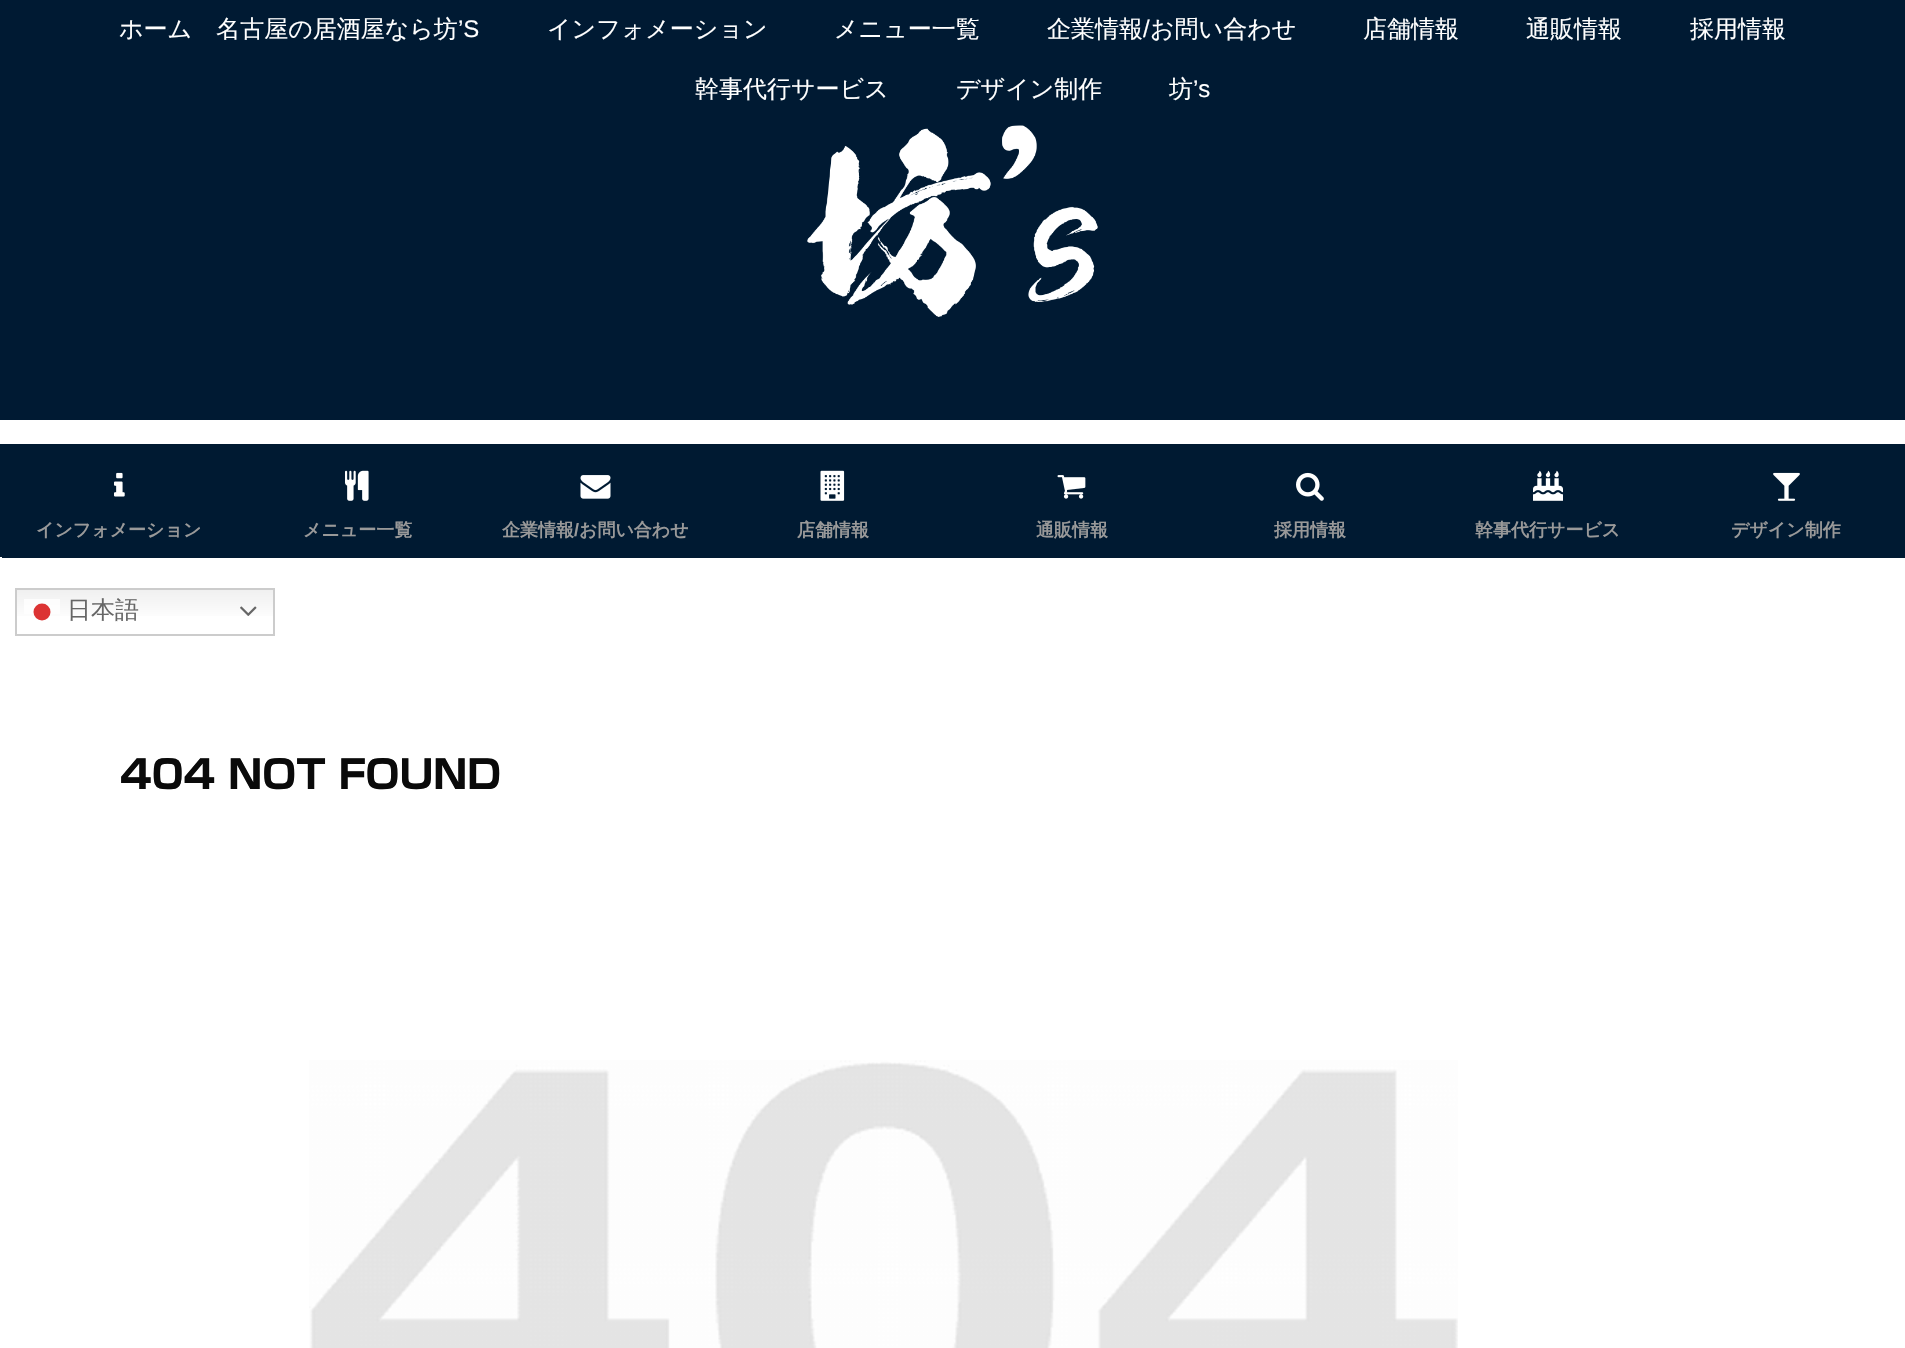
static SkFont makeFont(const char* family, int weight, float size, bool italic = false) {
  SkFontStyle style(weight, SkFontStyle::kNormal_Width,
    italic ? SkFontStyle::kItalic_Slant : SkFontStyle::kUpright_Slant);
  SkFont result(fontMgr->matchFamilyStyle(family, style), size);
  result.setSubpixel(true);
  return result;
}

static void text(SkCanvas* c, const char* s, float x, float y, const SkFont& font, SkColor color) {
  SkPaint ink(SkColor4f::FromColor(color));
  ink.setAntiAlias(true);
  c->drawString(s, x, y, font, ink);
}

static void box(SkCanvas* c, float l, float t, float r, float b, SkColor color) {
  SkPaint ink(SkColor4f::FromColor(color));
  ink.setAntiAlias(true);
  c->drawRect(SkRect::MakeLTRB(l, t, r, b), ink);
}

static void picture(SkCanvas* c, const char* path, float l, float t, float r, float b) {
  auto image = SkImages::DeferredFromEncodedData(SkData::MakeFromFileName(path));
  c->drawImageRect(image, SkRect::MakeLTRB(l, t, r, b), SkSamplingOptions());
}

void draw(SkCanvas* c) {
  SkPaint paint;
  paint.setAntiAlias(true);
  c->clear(0xffffffff);
  box(c, 0, 0, 1905, 420, 0xff001a33);
  picture(c, "img_01.png", 807, 125, 1098, 317);
  SkFont face1 = makeFont("WenQuanYi Zen Hei", 500, 24);
  text(c, "ホーム　名古屋の居酒屋なら坊", 119, 37, face1, 0xffffffff);
  SkFont face2 = makeFont("Liberation Sans", 400, 24);
  text(c, "’S", 458, 37, face2, 0xffffffff);
  text(c, "インフォメーション", 547, 37, face1, 0xffffffff);
  text(c, "メニュー一覧", 834, 37, face1, 0xffffffff);
  text(c, "企業情報", 1047, 37, face1, 0xffffffff);
  text(c, "/", 1143, 37, face2, 0xffffffff);
  text(c, "お問い合わせ", 1150, 37, face1, 0xffffffff);
  text(c, "店舗情報", 1363, 37, face1, 0xffffffff);
  text(c, "通販情報", 1526, 37, face1, 0xffffffff);
  text(c, "採用情報", 1690, 37, face1, 0xffffffff);
  text(c, "幹事代行サービス", 695, 97, face1, 0xffffffff);
  text(c, "デザイン制作", 956, 97, face1, 0xffffffff);
  text(c, "坊", 1169, 97, face1, 0xffffffff);
  text(c, "’s", 1193, 97, face2, 0xffffffff);
  paint.setColor(0xff001a32);
  c->drawPath(SkPathBuilder().moveTo(2, 556).lineTo(2, 558).lineTo(240, 558).lineTo(240, 446).lineTo(238, 446).lineTo(238, 556).close().detach(), paint);
  box(c, 0, 444, 239, 557, 0xff001a32);
  picture(c, "img_02.png", 114, 472, 125, 497);
  SkFont face3 = makeFont("WenQuanYi Zen Hei", 700, 18);
  text(c, "インフォメーション", 36, 536, face3, 0xff999999);
  c->drawPath(SkPathBuilder().moveTo(240, 556).lineTo(240, 558).lineTo(479, 558).lineTo(479, 446).lineTo(477, 446).lineTo(477, 556).close().detach(), paint);
  box(c, 239, 444, 477, 556, 0xff001a32);
  picture(c, "img_03.png", 345, 470, 369, 501);
  text(c, "メニュー一覧", 303, 536, face3, 0xff999999);
  c->drawPath(SkPathBuilder().moveTo(479, 556).lineTo(479, 558).lineTo(716, 558).lineTo(716, 446).lineTo(714, 446).lineTo(714, 556).close().detach(), paint);
  box(c, 477, 444, 714, 556, 0xff001a32);
  picture(c, "img_04.png", 580, 475, 611, 499);
  text(c, "企業情報", 502, 536, face3, 0xff999999);
  SkFont face4 = makeFont("Liberation Sans", 700, 18);
  text(c, "/", 574, 536, face4, 0xff999999);
  text(c, "お問い合わせ", 579, 536, face3, 0xff999999);
  c->drawPath(SkPathBuilder().moveTo(716, 556).lineTo(716, 558).lineTo(954, 558).lineTo(954, 446).lineTo(952, 446).lineTo(952, 556).close().detach(), paint);
  box(c, 714, 444, 953, 556, 0xff001a32);
  picture(c, "img_05.png", 820, 470, 845, 501);
  text(c, "店舗情報", 797, 536, face3, 0xff999999);
  c->drawPath(SkPathBuilder().moveTo(954, 556).lineTo(954, 558).lineTo(1193, 558).lineTo(1193, 446).lineTo(1191, 446).lineTo(1191, 556).close().detach(), paint);
  box(c, 953, 444, 1191, 556, 0xff001a32);
  picture(c, "img_06.png", 1057, 475, 1086, 499);
  text(c, "通販情報", 1036, 536, face3, 0xff999999);
  c->drawPath(SkPathBuilder().moveTo(1193, 556).lineTo(1193, 558).lineTo(1431, 558).lineTo(1431, 446).lineTo(1430, 446).lineTo(1430, 556).close().detach(), paint);
  box(c, 1191, 444, 1430, 556, 0xff001a32);
  picture(c, "img_07.png", 1296, 472, 1324, 501);
  text(c, "採用情報", 1274, 536, face3, 0xff999999);
  c->drawPath(SkPathBuilder().moveTo(1431, 556).lineTo(1431, 558).lineTo(1668, 558).lineTo(1668, 446).lineTo(1666, 446).lineTo(1666, 556).close().detach(), paint);
  box(c, 1430, 444, 1905, 556, 0xff001a32);
  picture(c, "img_08.png", 1533, 470, 1563, 501);
  text(c, "幹事代行サービス", 1475, 536, face3, 0xff999999);
  c->drawPath(SkPathBuilder().moveTo(1668, 556).lineTo(1668, 558).lineTo(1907, 558).lineTo(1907, 446).lineTo(1905, 446).lineTo(1905, 556).close().detach(), paint);
  picture(c, "img_09.png", 1773, 472, 1800, 501);
  text(c, "デザイン制作", 1731, 536, face3, 0xff999999);
  {
    const SkColor colors[] = {0xffefefef, 0xffffffff};
    const float stops[] = {0, 0.7f};
    const SkPoint ends[] = {{145, 588}, {145, 636}};
    paint.setShader(SkGradientShader::MakeLinear(ends, colors, stops, 2, SkTileMode::kClamp));
    paint.setAlpha(255);
  }
  c->drawRect(SkRect::MakeLTRB(17, 590, 273, 616), paint);
  {
    const SkColor colors[] = {0xfffcfcfc, 0xffffffff};
    const float stops[] = {0, 0.7f};
    const SkPoint ends[] = {{145, 588}, {145, 636}};
    paint.setShader(SkGradientShader::MakeLinear(ends, colors, stops, 2, SkTileMode::kClamp));
    paint.setAlpha(255);
  }
  c->drawRect(SkRect::MakeLTRB(24, 599, 60, 614), paint);
  paint.setStyle(SkPaint::kStroke_Style);
  paint.setStrokeWidth(2);
  paint.setShader(nullptr);
  paint.setColor(0xffcccccc);
  c->drawRect(SkRect::MakeLTRB(16, 589, 274, 635), paint);
  paint.setStyle(SkPaint::kFill_Style);
  paint.setColor(0xffdc3333);
  c->drawCircle(42, 612, 8.5f, paint);
  text(c, "日本語", 67, 618, face1, 0xff666666);
  picture(c, "img_10.png", 240, 606, 257, 616);
  SkFont face5 = makeFont("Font", 700, 39);
  text(c, "404 NOT FOUND", 120, 789, face5, 0xff0a0a0a);
  picture(c, "img_11.png", 309, 1060, 1458, 1348);
}
